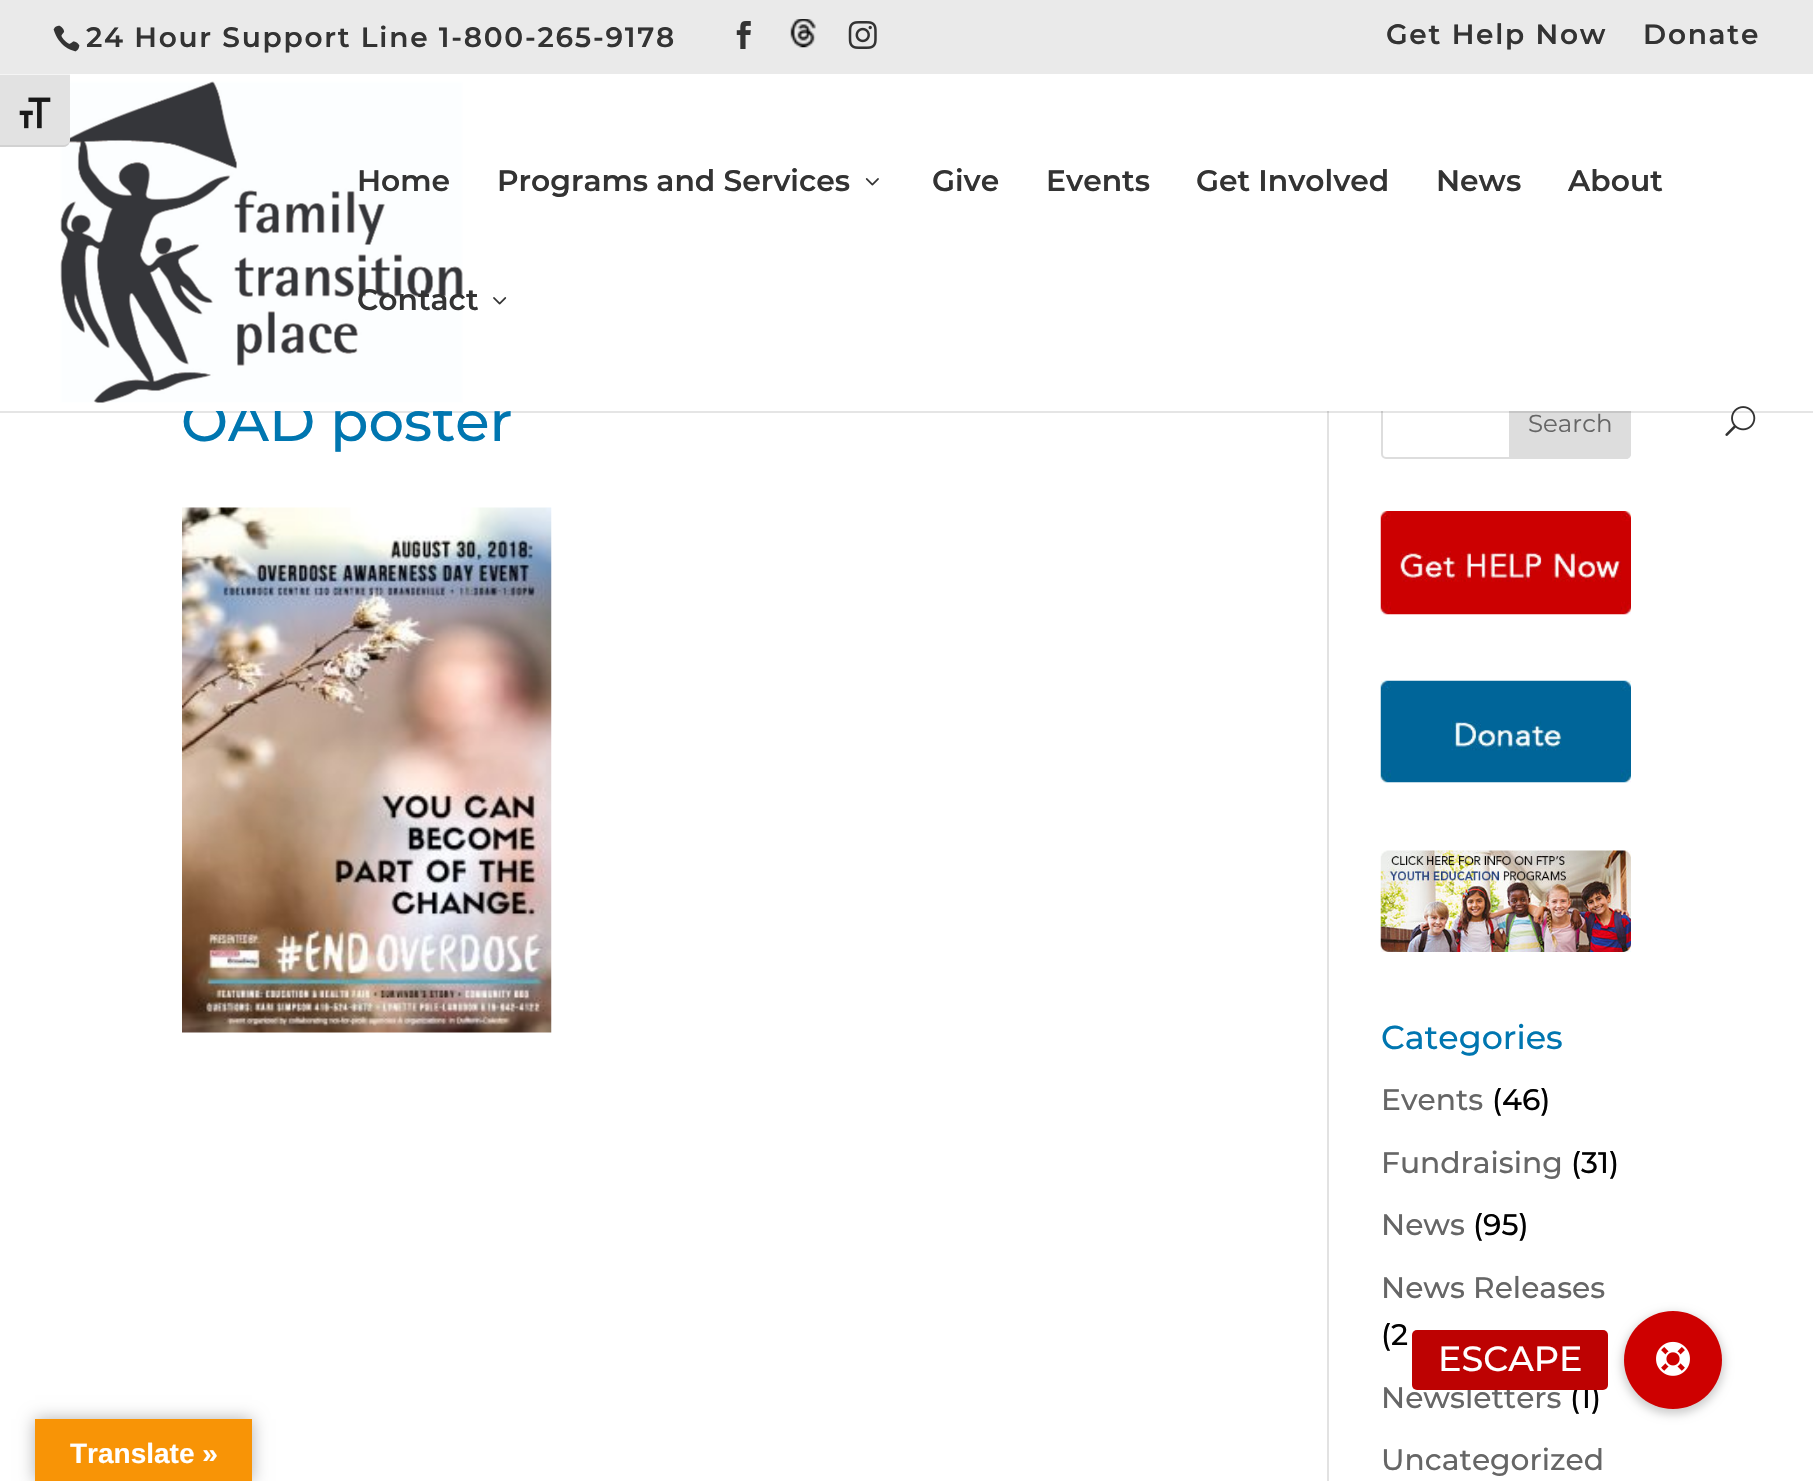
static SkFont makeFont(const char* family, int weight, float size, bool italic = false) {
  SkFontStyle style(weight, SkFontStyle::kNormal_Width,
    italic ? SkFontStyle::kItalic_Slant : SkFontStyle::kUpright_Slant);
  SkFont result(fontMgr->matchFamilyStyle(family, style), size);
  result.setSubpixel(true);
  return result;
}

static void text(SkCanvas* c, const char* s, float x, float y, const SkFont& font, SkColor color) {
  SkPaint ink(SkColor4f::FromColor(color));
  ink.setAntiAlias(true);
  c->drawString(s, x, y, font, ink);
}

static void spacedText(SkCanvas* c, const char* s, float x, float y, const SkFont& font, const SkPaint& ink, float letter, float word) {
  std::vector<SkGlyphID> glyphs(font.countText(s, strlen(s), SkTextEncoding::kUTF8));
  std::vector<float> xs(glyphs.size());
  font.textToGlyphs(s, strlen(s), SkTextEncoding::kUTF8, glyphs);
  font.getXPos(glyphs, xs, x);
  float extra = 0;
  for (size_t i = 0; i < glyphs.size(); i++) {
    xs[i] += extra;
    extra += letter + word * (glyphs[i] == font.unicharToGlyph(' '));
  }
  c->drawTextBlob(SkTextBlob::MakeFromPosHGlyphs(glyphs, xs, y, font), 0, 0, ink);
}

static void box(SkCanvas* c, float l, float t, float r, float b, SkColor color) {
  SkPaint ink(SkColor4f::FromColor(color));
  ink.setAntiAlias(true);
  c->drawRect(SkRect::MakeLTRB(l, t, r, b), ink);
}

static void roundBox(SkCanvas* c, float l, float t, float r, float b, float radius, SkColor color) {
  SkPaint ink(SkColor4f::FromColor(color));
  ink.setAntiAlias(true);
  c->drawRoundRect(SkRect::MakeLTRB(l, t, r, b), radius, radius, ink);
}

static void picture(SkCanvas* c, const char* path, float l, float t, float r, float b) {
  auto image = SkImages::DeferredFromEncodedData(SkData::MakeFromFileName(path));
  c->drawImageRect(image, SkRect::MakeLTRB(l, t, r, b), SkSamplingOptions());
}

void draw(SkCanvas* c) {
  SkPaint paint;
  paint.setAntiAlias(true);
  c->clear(0xffffffff);
  box(c, 0, 0, 1813, 74, 0xffeaeaea);
  picture(c, "img_01.png", 53, 25, 80, 52);
  SkFont face1 = makeFont("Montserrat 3", 100, 28);
  paint.setColor(0xff333333);
  spacedText(c, "24 Hour Support Line 1-800-265-9178", 86, 47, face1, paint, 1.75f, 0);
  picture(c, "img_02.png", 736, 21, 751, 49);
  picture(c, "img_03.png", 790, 19, 816, 48);
  picture(c, "img_04.png", 848, 21, 877, 49);
  spacedText(c, "Get Help Now", 1386, 44, face1, paint, 1.75f, 0);
  spacedText(c, "Donate", 1643, 44, face1, paint, 1.75f, 0);
  paint.setStyle(SkPaint::kStroke_Style);
  paint.setStrokeWidth(2);
  paint.setColor(0xffdddddd);
  c->drawRoundRect(SkRect::MakeLTRB(1382, 390, 1630, 458), 4, 4, paint);
  paint.setStyle(SkPaint::kFill_Style);
  c->drawPath(SkPathBuilder().moveTo(1510, 390).lineTo(1626, 390).cubicTo(1628, 390, 1630, 392, 1630, 394).lineTo(1630, 454).cubicTo(1630, 456, 1628, 458, 1626, 458).lineTo(1510, 458).close().detach(), paint);
  paint.setStyle(SkPaint::kStroke_Style);
  c->drawPath(SkPathBuilder().moveTo(1510, 390).lineTo(1626, 390).cubicTo(1628, 390, 1630, 392, 1630, 394).lineTo(1630, 454).cubicTo(1630, 456, 1628, 458, 1626, 458).lineTo(1510, 458).close().detach(), paint);
  box(c, 1327, 411, 1329, 1481, 0xffe2e2e2);
  box(c, 0, 411, 1813, 413, 0x1a000000);
  SkFont face2 = makeFont("Montserrat", 100, 56);
  text(c, "OAD poster", 181, 441, face2, 0xff0076b0);
  box(c, 186, 389, 1631, 411, 0xffffffff);
  picture(c, "img_05.png", 60, 81, 463, 403);
  SkFont face3 = makeFont("Montserrat 3", 100, 29.75f);
  text(c, "Home", 357, 191, face3, 0xff333333);
  text(c, "Programs and Services", 497, 191, face3, 0xff333333);
  picture(c, "img_06.png", 865, 178, 879, 186);
  text(c, "Give", 932, 191, face3, 0xff333333);
  text(c, "Events", 1046, 191, face3, 0xff333333);
  text(c, "Get Involved", 1196, 191, face3, 0xff333333);
  text(c, "News", 1436, 191, face3, 0xff333333);
  text(c, "About", 1568, 191, face3, 0xff333333);
  text(c, "Contact", 357, 310, face3, 0xff333333);
  picture(c, "img_07.png", 493, 297, 507, 305);
  picture(c, "img_08.png", 1725, 406, 1756, 436);
  paint.setStyle(SkPaint::kFill_Style);
  paint.setColor(0xffe2e2e2);
  c->drawPath(SkPathBuilder().moveTo(0, 74).lineTo(70, 74).lineTo(70, 140).cubicTo(70, 144, 67, 147, 63, 147).lineTo(0, 147).close().detach(), paint);
  box(c, 0, 74, 70, 75, 0xfff5f5f5);
  paint.setColor(0xffd2d2d2);
  c->drawPath(SkPathBuilder().moveTo(0, 145).lineTo(0, 147).lineTo(63, 147).cubicTo(67, 147, 70, 144, 70, 140).cubicTo(70, 143, 67, 145, 63, 145).close().detach(), paint);
  picture(c, "img_09.png", 19, 97, 51, 129);
  picture(c, "img_10.png", 182, 507, 552, 1033);
  SkFont face4 = makeFont("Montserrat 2", 100, 24.5f);
  text(c, "Search", 1528, 432, face4, 0xff666666);
  picture(c, "img_11.png", 1380, 511, 1631, 615);
  picture(c, "img_12.png", 1380, 680, 1631, 783);
  picture(c, "img_13.png", 1380, 850, 1631, 952);
  SkFont face5 = makeFont("Montserrat", 100, 33.25f);
  text(c, "Categories", 1381, 1049, face5, 0xff0076b0);
  SkFont face6 = makeFont("Montserrat", 100, 29.75f);
  text(c, "Events", 1381, 1110, face6, 0xff666666);
  text(c, "(46)", 1492, 1110, face6, 0xff020202);
  text(c, "Fundraising", 1381, 1173, face6, 0xff666666);
  text(c, "(31)", 1571, 1173, face6, 0xff020202);
  text(c, "News", 1381, 1235, face6, 0xff666666);
  text(c, "(95)", 1473, 1235, face6, 0xff020202);
  text(c, "News Releases", 1381, 1298, face6, 0xff666666);
  text(c, "(2", 1381, 1345, face6, 0xff020202);
  text(c, "Newsletters", 1381, 1408, face6, 0xff666666);
  text(c, "(1)", 1570, 1408, face6, 0xff020202);
  text(c, "Uncategorized", 1381, 1470, face6, 0xff666666);
  paint.setColor(0x33000000);
  paint.setMaskFilter(SkMaskFilter::MakeBlur(kNormal_SkBlurStyle, 5));
  c->drawRoundRect(SkRect::MakeLTRB(1622, 1313, 1724, 1414), 50.5f, 50.5f, paint);
  paint.setMaskFilter(nullptr);
  paint.setColor(0xffce0000);
  c->drawCircle(1673, 1360, 49, paint);
  roundBox(c, 1412, 1330, 1608, 1390, 5, 0xffbd0202);
  SkFont face7 = makeFont("Montserrat", 100, 35);
  text(c, "ESCAPE", 1438, 1371, face7, 0xffffffff);
  picture(c, "img_14.png", 1656, 1341, 1690, 1376);
  paint.setColor(0x4d000000);
  paint.setMaskFilter(SkMaskFilter::MakeBlur(kNormal_SkBlurStyle, 8));
  c->drawRect(SkRect::MakeLTRB(35, 1419, 252, 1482), paint);
  paint.setMaskFilter(nullptr);
  box(c, 35, 1419, 252, 1481, 0xfff89406);
  SkFont face8 = makeFont("Liberation Sans", 700, 28);
  text(c, "Translate »", 70, 1463, face8, 0xffffffff);
}
